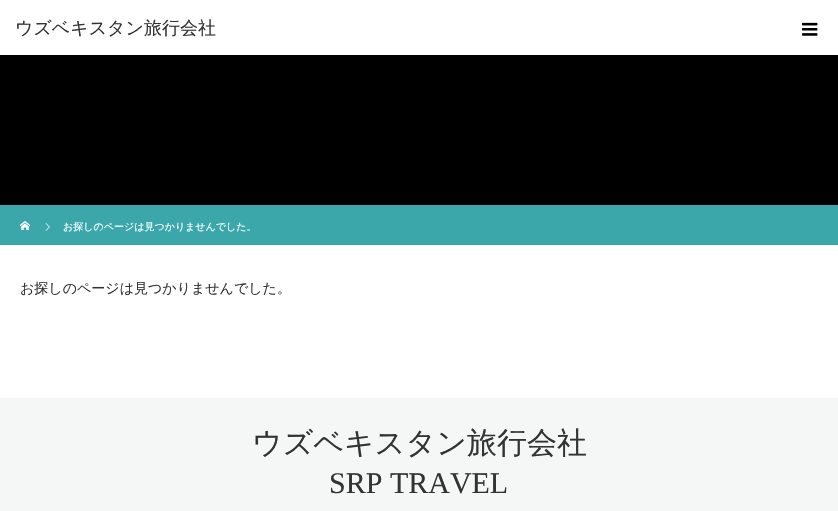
static SkFont makeFont(const char* family, int weight, float size, bool italic = false) {
  SkFontStyle style(weight, SkFontStyle::kNormal_Width,
    italic ? SkFontStyle::kItalic_Slant : SkFontStyle::kUpright_Slant);
  SkFont result(fontMgr->matchFamilyStyle(family, style), size);
  result.setSubpixel(true);
  return result;
}

static void text(SkCanvas* c, const char* s, float x, float y, const SkFont& font, SkColor color) {
  SkPaint ink(SkColor4f::FromColor(color));
  ink.setAntiAlias(true);
  c->drawString(s, x, y, font, ink);
}

static void box(SkCanvas* c, float l, float t, float r, float b, SkColor color) {
  SkPaint ink(SkColor4f::FromColor(color));
  ink.setAntiAlias(true);
  c->drawRect(SkRect::MakeLTRB(l, t, r, b), ink);
}

static void picture(SkCanvas* c, const char* path, float l, float t, float r, float b) {
  auto image = SkImages::DeferredFromEncodedData(SkData::MakeFromFileName(path));
  c->drawImageRect(image, SkRect::MakeLTRB(l, t, r, b), SkSamplingOptions());
}

void draw(SkCanvas* c) {
  SkPaint paint;
  paint.setAntiAlias(true);
  c->clear(0xffffffff);
  SkFont face1 = makeFont("WenQuanYi Zen Hei", 500, 18);
  text(c, "ウズベキスタン旅行会社", 15, 34, face1, 0xff333333);
  picture(c, "img_01.png", 802, 22, 818, 36);
  box(c, 0, 55, 838, 205, 0xff000000);
  box(c, 0, 205, 838, 245, 0xff3ca7ab);
  picture(c, "img_02.png", 20, 221, 30, 230);
  picture(c, "img_03.png", 45, 223, 50, 231);
  SkFont face2 = makeFont("WenQuanYi Zen Hei", 500, 10);
  text(c, "お探しのページは見つかりませんでした。", 63, 230, face2, 0xffffffff);
  SkFont face3 = makeFont("WenQuanYi Zen Hei", 500, 14);
  text(c, "お探しのページは見つかりませんでした。", 20, 293, face3, 0xff333333);
  box(c, 0, 398, 838, 511, 0xfff5f7f6);
  SkFont face4 = makeFont("WenQuanYi Zen Hei", 500, 30);
  text(c, "ウズベキスタン旅行会社", 252, 453, face4, 0xff333333);
  SkFont face5 = makeFont("Liberation Serif", 400, 30);
  text(c, "SRP TRAVEL", 329, 493, face5, 0xff333333);
}
